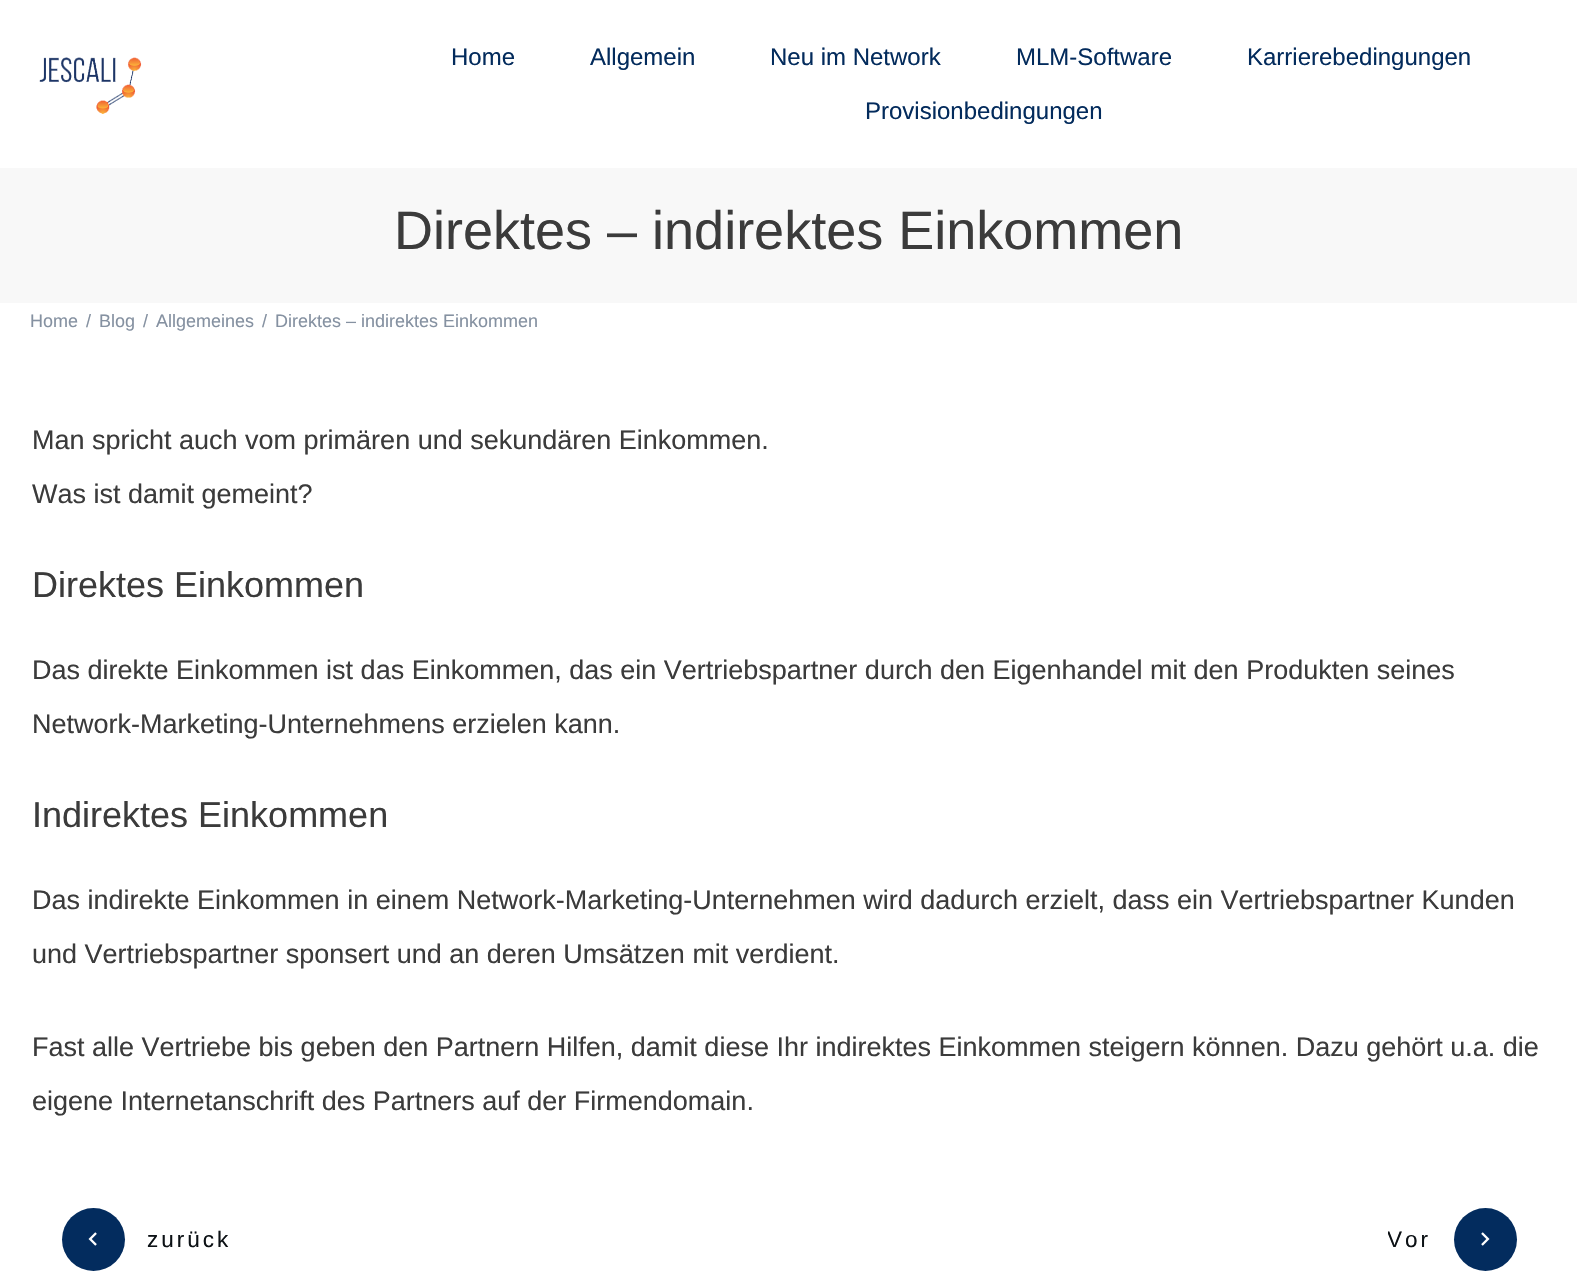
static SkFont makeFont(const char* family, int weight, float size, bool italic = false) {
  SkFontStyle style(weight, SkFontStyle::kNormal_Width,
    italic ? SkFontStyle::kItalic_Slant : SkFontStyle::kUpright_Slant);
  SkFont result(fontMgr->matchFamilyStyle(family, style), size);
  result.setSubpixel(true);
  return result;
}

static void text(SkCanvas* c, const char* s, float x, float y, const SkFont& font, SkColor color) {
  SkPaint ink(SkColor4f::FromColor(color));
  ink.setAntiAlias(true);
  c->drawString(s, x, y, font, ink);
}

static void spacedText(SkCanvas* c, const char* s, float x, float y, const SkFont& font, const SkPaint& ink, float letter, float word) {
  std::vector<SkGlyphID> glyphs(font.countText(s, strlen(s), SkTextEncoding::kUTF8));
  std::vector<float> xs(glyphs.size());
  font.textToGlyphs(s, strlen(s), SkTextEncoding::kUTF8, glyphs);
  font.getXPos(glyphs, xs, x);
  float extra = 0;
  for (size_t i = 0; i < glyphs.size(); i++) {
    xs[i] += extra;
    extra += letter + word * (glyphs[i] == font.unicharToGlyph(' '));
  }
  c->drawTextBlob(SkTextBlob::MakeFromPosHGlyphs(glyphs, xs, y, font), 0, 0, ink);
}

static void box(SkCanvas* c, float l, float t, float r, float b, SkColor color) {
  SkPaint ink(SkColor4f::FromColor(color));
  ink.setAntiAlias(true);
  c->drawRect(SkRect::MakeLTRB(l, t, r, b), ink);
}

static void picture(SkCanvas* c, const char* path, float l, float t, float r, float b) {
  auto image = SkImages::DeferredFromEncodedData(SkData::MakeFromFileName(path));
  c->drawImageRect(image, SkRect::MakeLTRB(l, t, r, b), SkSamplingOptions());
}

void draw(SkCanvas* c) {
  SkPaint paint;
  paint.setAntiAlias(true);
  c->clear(0xffffffff);
  picture(c, "img_01.png", 39, 57, 142, 114);
  SkFont face1 = makeFont("Liberation Sans", 400, 24);
  text(c, "Home", 451, 65, face1, 0xff032b5c);
  text(c, "Allgemein", 590, 65, face1, 0xff032b5c);
  text(c, "Neu im Network", 770, 65, face1, 0xff032b5c);
  text(c, "MLM-Software", 1016, 65, face1, 0xff032b5c);
  text(c, "Karrierebedingungen", 1247, 65, face1, 0xff032b5c);
  text(c, "Provisionbedingungen", 865, 119, face1, 0xff032b5c);
  box(c, 0, 168, 1577, 303, 0xfff8f8f8);
  SkFont face2 = makeFont("Liberation Sans", 400, 54);
  text(c, "Direktes – indirektes Einkommen", 394, 249, face2, 0xff3b3b3b);
  SkFont face3 = makeFont("Liberation Sans", 400, 18);
  text(c, "Home", 30, 327, face3, 0xff8591a1);
  text(c, "/", 86, 327, face3, 0xff8591a1);
  text(c, "Blog", 99, 327, face3, 0xff8591a1);
  text(c, "/", 143, 327, face3, 0xff8591a1);
  text(c, "Allgemeines", 156, 327, face3, 0xff8591a1);
  text(c, "/", 262, 327, face3, 0xff8591a1);
  text(c, "Direktes – indirektes Einkommen", 275, 327, face3, 0xff8591a1);
  SkFont face4 = makeFont("Liberation Sans", 400, 27);
  text(c, "Man spricht auch vom primären und sekundären Einkommen.", 32, 449, face4, 0xff3b3b3b);
  text(c, "Was ist damit gemeint?", 32, 503, face4, 0xff3b3b3b);
  SkFont face5 = makeFont("Liberation Sans", 400, 36);
  text(c, "Direktes Einkommen", 32, 597, face5, 0xff3b3b3b);
  text(c, "Das direkte Einkommen ist das Einkommen, das ein Vertriebspartner durch den Eigenhandel mit den Produkten seines", 32, 679, face4, 0xff3b3b3b);
  text(c, "Network-Marketing-Unternehmens erzielen kann.", 32, 733, face4, 0xff3b3b3b);
  text(c, "Indirektes Einkommen", 32, 827, face5, 0xff3b3b3b);
  text(c, "Das indirekte Einkommen in einem Network-Marketing-Unternehmen wird dadurch erzielt, dass ein Vertriebspartner Kunden", 32, 909, face4, 0xff3b3b3b);
  text(c, "und Vertriebspartner sponsert und an deren Umsätzen mit verdient.", 32, 963, face4, 0xff3b3b3b);
  text(c, "Fast alle Vertriebe bis geben den Partnern Hilfen, damit diese Ihr indirektes Einkommen steigern können. Dazu gehört u.a. die", 32, 1056, face4, 0xff3b3b3b);
  text(c, "eigene Internetanschrift des Partners auf der Firmendomain.", 32, 1110, face4, 0xff3b3b3b);
  paint.setColor(0xff032c5e);
  c->drawCircle(93.5f, 1239.5f, 31.5f, paint);
  picture(c, "img_02.png", 88, 1232, 97, 1246);
  SkFont face6 = makeFont("Liberation Sans", 400, 22.5f);
  paint.setColor(0xff0c1115);
  spacedText(c, "zurück", 147, 1247, face6, paint, 3, 0);
  c->save();
  c->clipRect(SkRect::MakeLTRB(1388, 1208, 1517, 1271));
  spacedText(c, "Vor", 1387, 1247, face6, paint, 3, 0);
  c->restore();
  paint.setColor(0xff032c5e);
  c->drawCircle(1485.5f, 1239.5f, 31.5f, paint);
  picture(c, "img_03.png", 1481, 1232, 1490, 1246);
}
